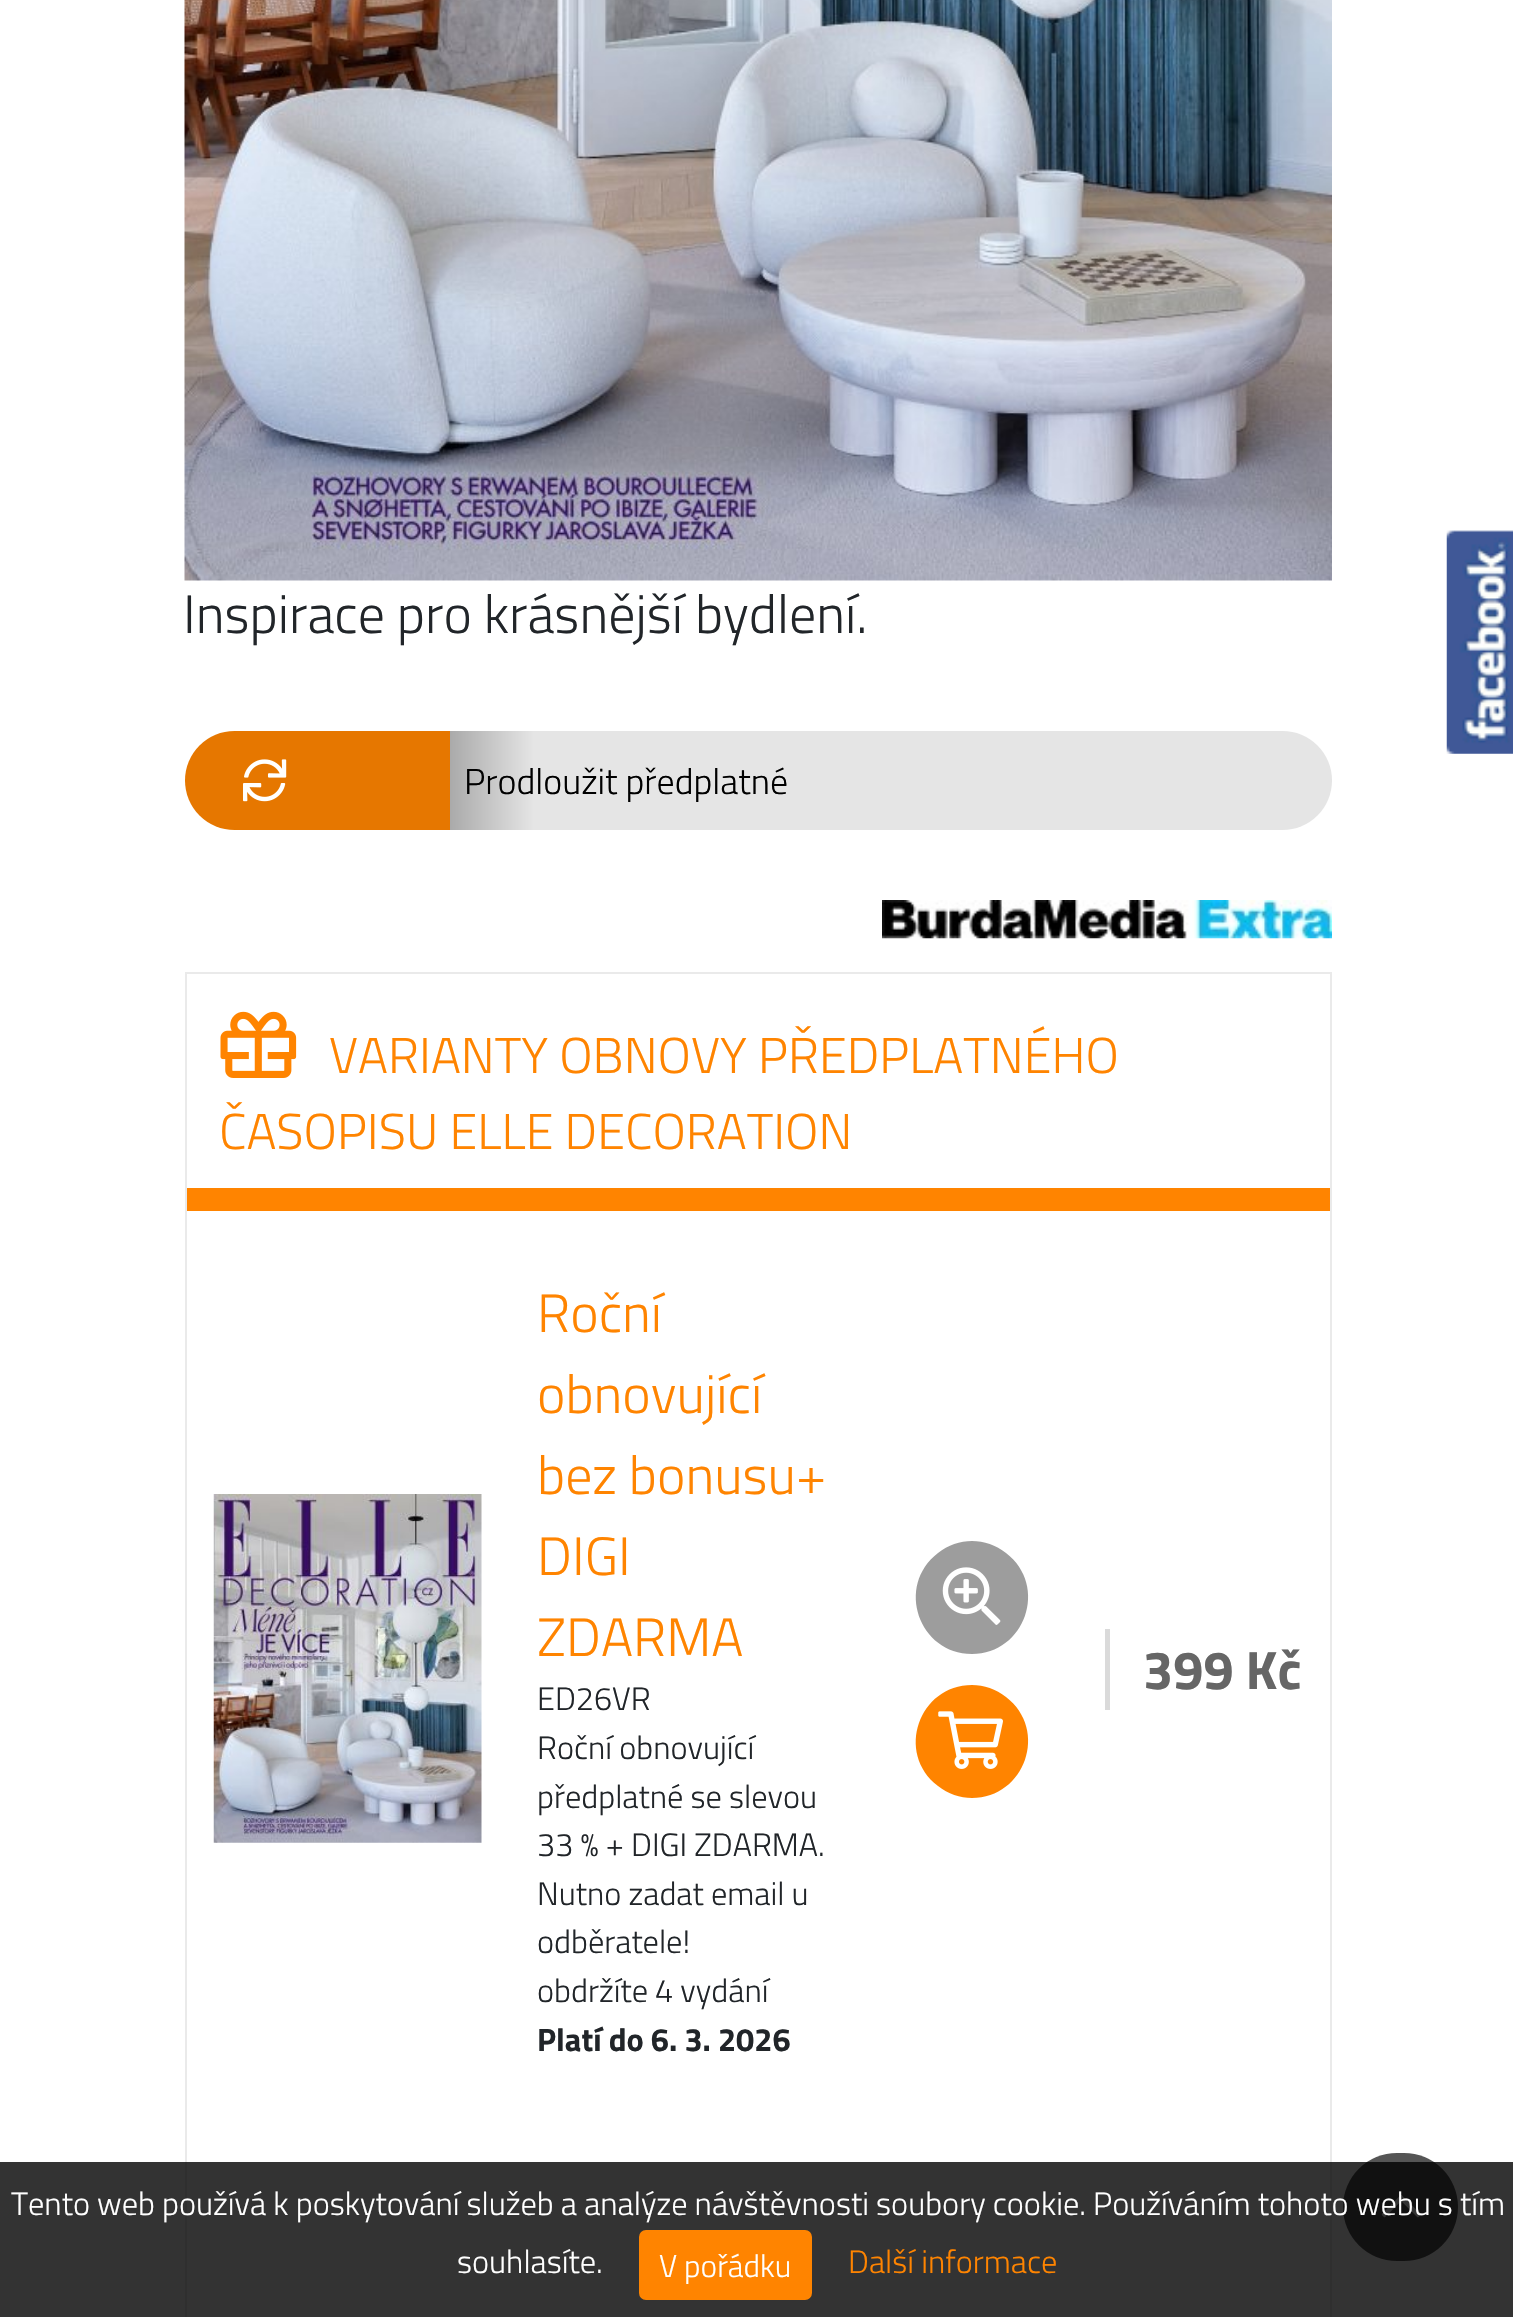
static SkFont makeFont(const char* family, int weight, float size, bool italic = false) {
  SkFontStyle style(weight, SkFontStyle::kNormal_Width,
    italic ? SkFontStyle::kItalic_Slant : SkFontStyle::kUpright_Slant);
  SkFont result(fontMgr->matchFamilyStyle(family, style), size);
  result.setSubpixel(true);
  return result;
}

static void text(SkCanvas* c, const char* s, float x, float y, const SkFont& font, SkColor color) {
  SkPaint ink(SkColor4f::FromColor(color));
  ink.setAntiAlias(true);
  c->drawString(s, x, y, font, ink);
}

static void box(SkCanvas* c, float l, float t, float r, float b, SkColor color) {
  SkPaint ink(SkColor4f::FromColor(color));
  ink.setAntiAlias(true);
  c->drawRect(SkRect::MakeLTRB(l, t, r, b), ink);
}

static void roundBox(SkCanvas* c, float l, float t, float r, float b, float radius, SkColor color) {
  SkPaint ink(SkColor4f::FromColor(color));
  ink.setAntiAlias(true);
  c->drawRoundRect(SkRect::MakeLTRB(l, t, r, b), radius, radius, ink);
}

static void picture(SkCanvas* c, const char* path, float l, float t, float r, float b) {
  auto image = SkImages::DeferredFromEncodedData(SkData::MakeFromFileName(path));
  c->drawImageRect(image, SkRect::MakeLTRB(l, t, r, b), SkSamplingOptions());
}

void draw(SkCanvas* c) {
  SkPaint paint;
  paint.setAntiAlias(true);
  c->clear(0xffffffff);
  picture(c, "img_01.png", 184, 0, 1332, 581);
  SkFont face1 = makeFont("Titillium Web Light", 300, 54);
  text(c, "Inspirace pro krásnější bydlení.", 183, 633, face1, 0xff212529);
  {
    const SkColor colors[] = {0xffe67700, 0xffe67700, 0xffaaaaaa, 0xffe5e5e5, 0xffe5e5e5};
    const float stops[] = {0, 0.22f, 0.22f, 0.29f, 1};
    const SkPoint ends[] = {{185, 781}, {1389, 781}};
    paint.setShader(SkGradientShader::MakeLinear(ends, colors, stops, 5, SkTileMode::kClamp));
    paint.setAlpha(255);
  }
  c->drawRoundRect(SkRect::MakeLTRB(185, 731, 1332, 830), 49.5f, 49.5f, paint);
  picture(c, "img_02.png", 243, 759, 287, 802);
  SkFont face2 = makeFont("Titillium Web Light", 300, 36);
  text(c, "Prodloužit předplatné", 464, 794, face2, 0xff000000);
  picture(c, "img_03.png", 882, 900, 1332, 939);
  paint.setStyle(SkPaint::kStroke_Style);
  paint.setStrokeWidth(2);
  paint.setShader(nullptr);
  paint.setColor(0xffeaeaea);
  c->drawRect(SkRect::MakeLTRB(186, 973, 1331, 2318), paint);
  box(c, 187, 1188, 1330, 1211, 0xffff8400);
  picture(c, "img_04.png", 220, 1011, 297, 1078);
  SkFont face3 = makeFont("Titillium Web Light", 300, 50.4f);
  text(c, "VARIANTY OBNOVY PŘEDPLATNÉHO", 329, 1073, face3, 0xffff8400);
  text(c, "ČASOPISU ELLE DECORATION", 219, 1149, face3, 0xffff8400);
  picture(c, "img_05.png", 213, 1494, 482, 1843);
  text(c, "Roční", 537, 1332, face1, 0xffff8400);
  text(c, "obnovující", 537, 1413, face1, 0xffff8400);
  text(c, "bez bonusu+", 537, 1494, face1, 0xffff8400);
  text(c, "DIGI", 537, 1575, face1, 0xffff8400);
  text(c, "ZDARMA", 537, 1656, face1, 0xffff8400);
  SkFont face4 = makeFont("Titillium Web Light", 300, 32.4f);
  text(c, "ED26VR", 537, 1710, face4, 0xff212529);
  text(c, "Roční obnovující", 537, 1759, face4, 0xff212529);
  text(c, "předplatné se slevou", 537, 1808, face4, 0xff212529);
  text(c, "33 % + DIGI ZDARMA.", 537, 1856, face4, 0xff212529);
  text(c, "Nutno zadat email u", 537, 1905, face4, 0xff212529);
  text(c, "odběratele!", 537, 1953, face4, 0xff212529);
  text(c, "obdržíte 4 vydání", 537, 2002, face4, 0xff212529);
  SkFont face5 = makeFont("Titillium Web", 700, 32.4f);
  text(c, "Platí do 6. 3. 2026", 537, 2051, face5, 0xff212529);
  roundBox(c, 905, 1530, 1037, 1661, 65.5f, 0xff9d9d9d);
  paint.setStyle(SkPaint::kFill_Style);
  paint.setColor(0xffffffff);
  c->drawPath(SkPathBuilder().moveTo(972, 1528).cubicTo(906, 1528, 877, 1612, 930, 1653).cubicTo(942, 1662, 957, 1667, 972, 1667).cubicTo(1038, 1667, 1067, 1583, 1014, 1542).cubicTo(1002, 1533, 987, 1528, 972, 1528).close().moveTo(972, 1654).cubicTo(919, 1654, 895, 1586, 938, 1553).cubicTo(948, 1545, 960, 1541, 972, 1541).cubicTo(984, 1541, 996, 1545, 1006, 1553).cubicTo(1049, 1586, 1025, 1654, 972, 1654).close().detach(), paint);
  picture(c, "img_06.png", 942, 1567, 1001, 1625);
  roundBox(c, 905, 1674, 1037, 1805, 65.5f, 0xffff8400);
  c->drawPath(SkPathBuilder().moveTo(972, 1672).cubicTo(957, 1672, 942, 1677, 930, 1686).cubicTo(877, 1727, 906, 1811, 972, 1811).cubicTo(987, 1811, 1002, 1806, 1014, 1797).cubicTo(1067, 1756, 1038, 1672, 972, 1672).close().moveTo(972, 1798).cubicTo(960, 1798, 948, 1794, 938, 1786).cubicTo(895, 1753, 919, 1685, 972, 1685).cubicTo(984, 1685, 996, 1689, 1006, 1697).cubicTo(1049, 1730, 1025, 1798, 972, 1798).close().detach(), paint);
  picture(c, "img_07.png", 938, 1711, 1003, 1769);
  box(c, 1105, 1629, 1110, 1710, 0xffdadada);
  SkFont face6 = makeFont("Titillium Web", 700, 54);
  text(c, "399 Kč", 1143, 1689, face6, 0xff666666);
  picture(c, "img_08.png", 1446, 530, 1513, 754);
  roundBox(c, 1343, 2153, 1458, 2261, 54, 0xff555555);
  picture(c, "img_09.png", 1381, 2195, 1421, 2218);
  box(c, 0, 2162, 1513, 2317, 0xcc000000);
  text(c, "Tento web používá k poskytování služeb a analýze návštěvnosti soubory cookie. Používáním tohoto webu s tím", 11, 2215, face4, 0xffffffff);
  text(c, "souhlasíte.", 457, 2273, face4, 0xffffffff);
  paint.setColor(0xffff8400);
  c->drawRoundRect(SkRect::MakeLTRB(640, 2231, 811, 2299), 6, 6, paint);
  paint.setStyle(SkPaint::kStroke_Style);
  c->drawRoundRect(SkRect::MakeLTRB(640, 2231, 811, 2299), 6, 6, paint);
  SkFont face7 = makeFont("Titillium Web Light", 300, 31.5f);
  text(c, "V pořádku", 659, 2277, face7, 0xffffffff);
  text(c, "Další informace", 848, 2273, face4, 0xffff8400);
}
